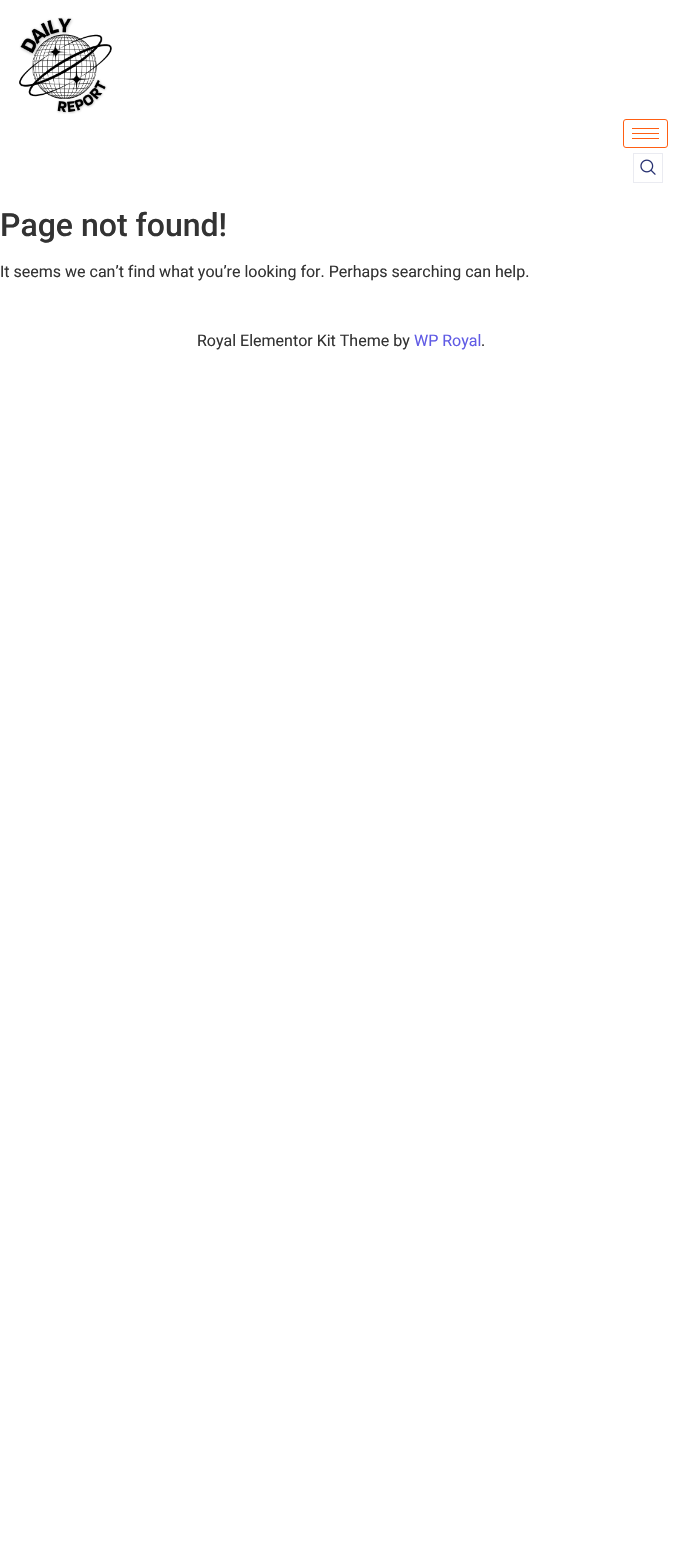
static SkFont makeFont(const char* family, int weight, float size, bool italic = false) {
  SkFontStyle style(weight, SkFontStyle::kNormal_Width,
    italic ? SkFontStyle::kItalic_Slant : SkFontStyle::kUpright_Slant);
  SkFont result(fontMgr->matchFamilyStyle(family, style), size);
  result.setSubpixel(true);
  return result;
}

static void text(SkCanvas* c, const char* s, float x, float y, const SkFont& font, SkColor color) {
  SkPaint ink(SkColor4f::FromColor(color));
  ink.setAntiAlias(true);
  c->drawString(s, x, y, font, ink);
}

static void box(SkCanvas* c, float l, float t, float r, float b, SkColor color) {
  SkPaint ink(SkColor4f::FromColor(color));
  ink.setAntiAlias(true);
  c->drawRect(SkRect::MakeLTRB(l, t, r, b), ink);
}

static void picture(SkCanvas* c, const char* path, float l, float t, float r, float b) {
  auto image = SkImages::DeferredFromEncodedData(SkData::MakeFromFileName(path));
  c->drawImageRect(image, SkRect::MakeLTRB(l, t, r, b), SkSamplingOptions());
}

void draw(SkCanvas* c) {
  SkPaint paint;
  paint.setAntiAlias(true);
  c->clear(0xffffffff);
  picture(c, "img_01.png", 19, 17, 112, 114);
  paint.setStyle(SkPaint::kStroke_Style);
  paint.setStrokeWidth(1);
  paint.setColor(0xffff5e13);
  c->drawRoundRect(SkRect::MakeLTRB(623.5f, 119.5f, 667.5f, 147.5f), 2.5f, 2.5f, paint);
  box(c, 632, 128, 659, 129, 0xffff5e13);
  box(c, 632, 133, 659, 134, 0xffff5e13);
  box(c, 632, 138, 659, 139, 0xffff5e13);
  paint.setColor(0xffeaebf1);
  c->drawRect(SkRect::MakeLTRB(633.5f, 153.5f, 662.5f, 182.5f), paint);
  picture(c, "img_02.png", 640, 159, 656, 175);
  SkFont face1 = makeFont("Roboto", 500, 32);
  text(c, "Page not found!", 0, 236, face1, 0xff333333);
  SkFont face2 = makeFont("Roboto", 400, 16);
  text(c, "It seems we can’t find what you’re looking for. Perhaps searching can help.", 0, 277, face2, 0xff333333);
  text(c, "Royal Elementor Kit Theme by", 197, 346, face2, 0xff333333);
  text(c, "WP Royal", 414, 346, face2, 0xff605be5);
  text(c, ".", 481, 346, face2, 0xff333333);
}
